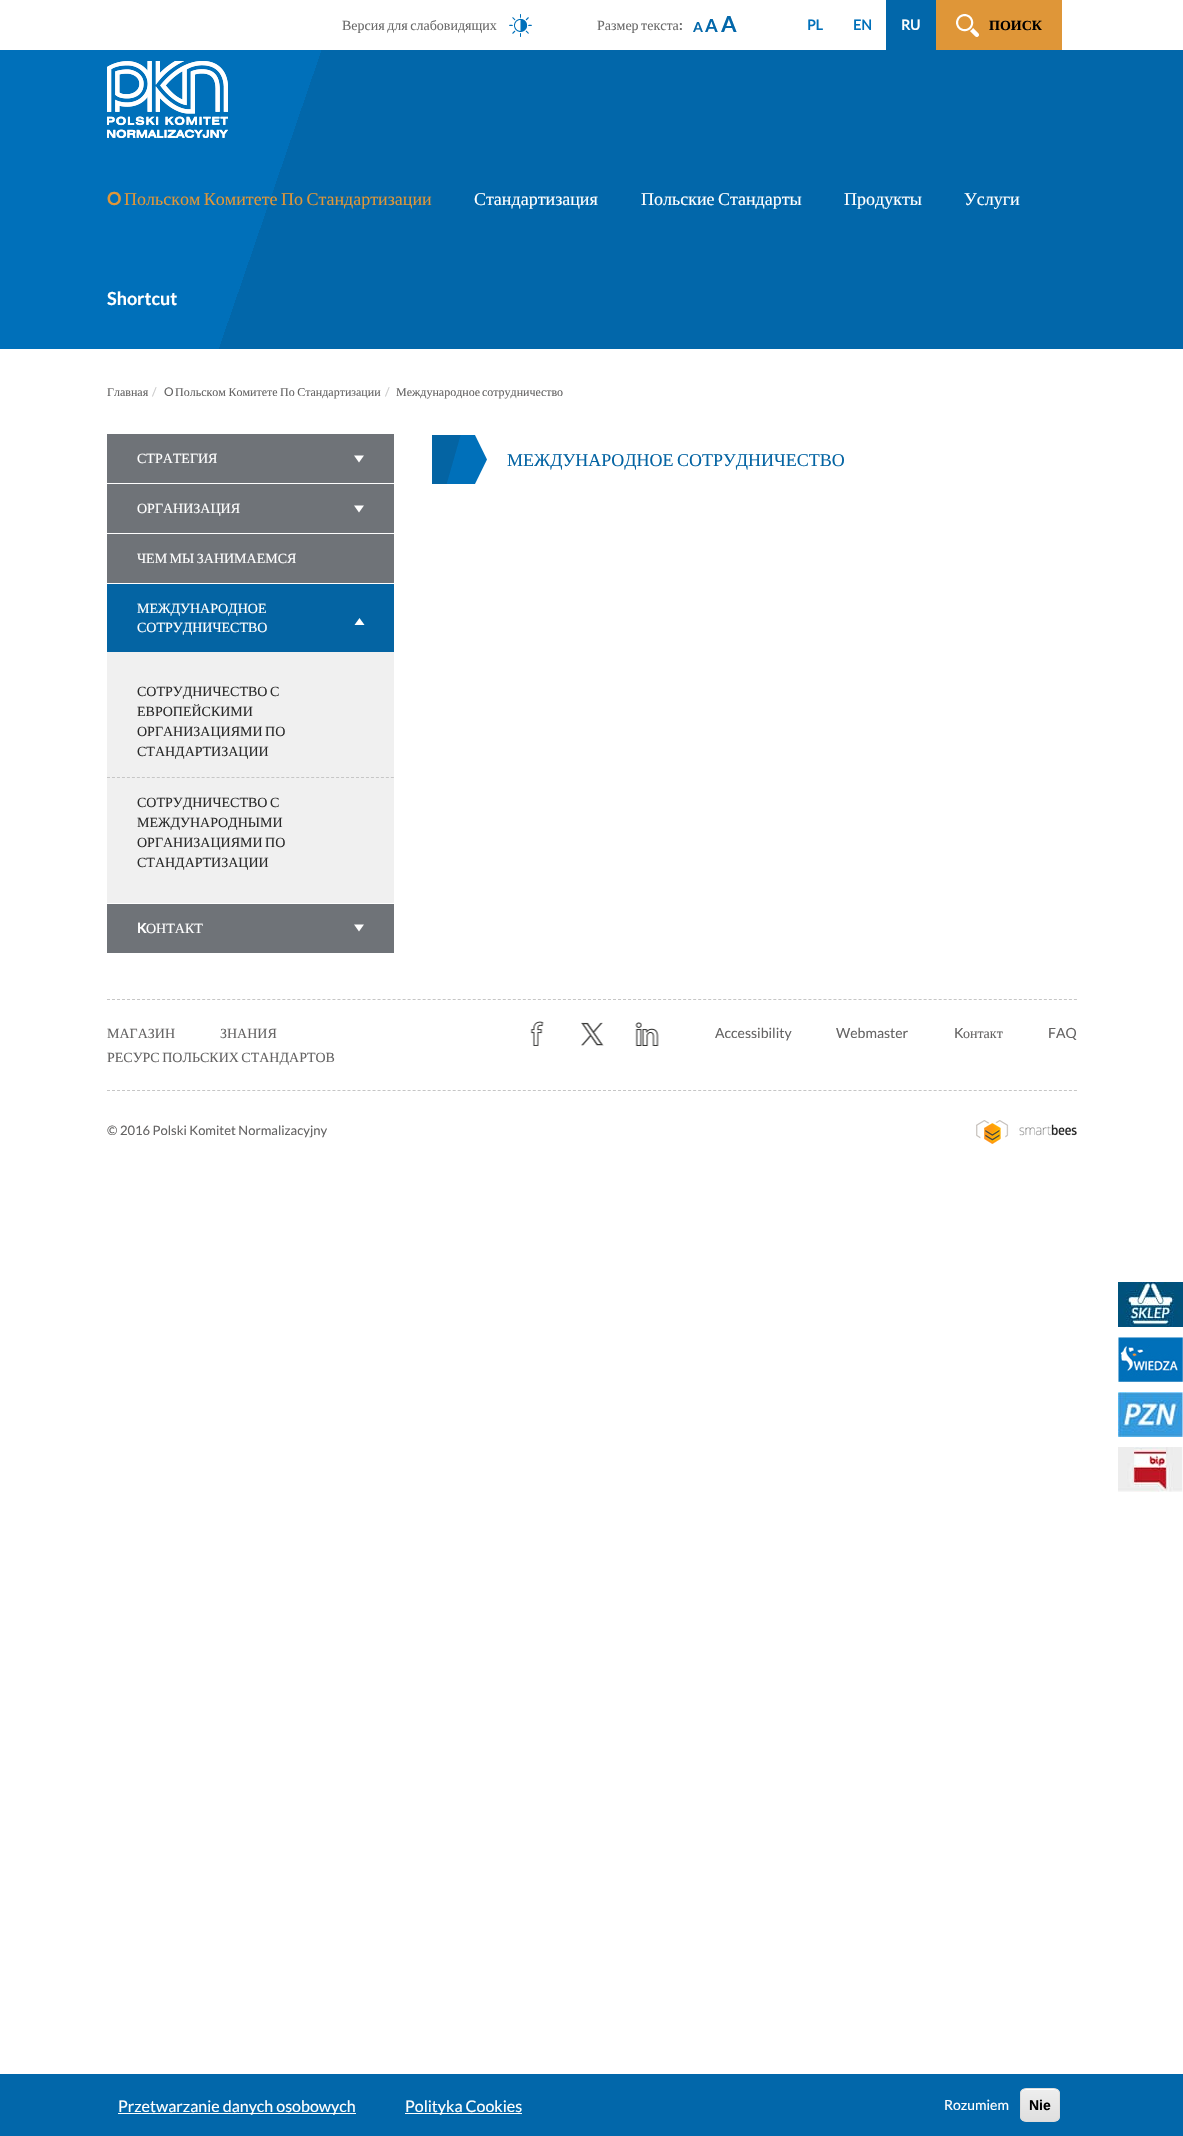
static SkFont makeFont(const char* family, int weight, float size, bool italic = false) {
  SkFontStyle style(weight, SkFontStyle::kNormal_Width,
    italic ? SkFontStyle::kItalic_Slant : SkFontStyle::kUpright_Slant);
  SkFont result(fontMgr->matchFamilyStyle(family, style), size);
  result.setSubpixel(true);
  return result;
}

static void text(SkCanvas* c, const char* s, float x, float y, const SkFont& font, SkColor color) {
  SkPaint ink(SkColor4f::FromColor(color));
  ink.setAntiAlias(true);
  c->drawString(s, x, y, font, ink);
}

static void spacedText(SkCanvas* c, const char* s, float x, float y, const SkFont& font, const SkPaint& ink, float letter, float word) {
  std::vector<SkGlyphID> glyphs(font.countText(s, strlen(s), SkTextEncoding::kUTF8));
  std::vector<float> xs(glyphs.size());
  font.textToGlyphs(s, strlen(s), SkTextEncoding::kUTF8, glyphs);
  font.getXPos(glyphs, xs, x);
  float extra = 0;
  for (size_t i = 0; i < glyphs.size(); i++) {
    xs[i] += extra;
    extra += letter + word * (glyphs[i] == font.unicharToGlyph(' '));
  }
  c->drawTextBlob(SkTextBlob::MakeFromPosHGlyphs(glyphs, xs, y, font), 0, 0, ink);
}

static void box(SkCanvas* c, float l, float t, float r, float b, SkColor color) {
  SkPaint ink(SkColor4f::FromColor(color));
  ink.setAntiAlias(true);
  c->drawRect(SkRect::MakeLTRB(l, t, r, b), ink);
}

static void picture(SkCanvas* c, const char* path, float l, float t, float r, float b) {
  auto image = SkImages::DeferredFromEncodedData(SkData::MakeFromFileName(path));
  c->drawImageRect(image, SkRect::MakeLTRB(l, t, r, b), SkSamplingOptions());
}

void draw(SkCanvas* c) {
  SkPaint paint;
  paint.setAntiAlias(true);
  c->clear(0xffffffff);
  SkFont face1 = makeFont("Liberation Serif", 400, 14);
  paint.setColor(0xff6a6a6a);
  spacedText(c, "Версия для слабовидящих", 342, 30, face1, paint, 0, -1);
  picture(c, "img_01.png", 509, 14, 532, 37);
  spacedText(c, "Размер текста", 597, 30, face1, paint, 0, -1);
  SkFont face2 = makeFont("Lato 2", 700, 14);
  text(c, ":", 679, 30, face2, 0xff6a6a6a);
  text(c, "A", 693, 32, face2, 0xff0267aa);
  SkFont face3 = makeFont("Lato 2", 700, 18);
  text(c, "A", 705, 32, face3, 0xff0267aa);
  SkFont face4 = makeFont("Lato 2", 700, 22);
  text(c, "A", 721, 32, face4, 0xff0267aa);
  SkFont face5 = makeFont("Lato", 700, 14);
  text(c, "PL", 807, 30, face5, 0xff0070ba);
  text(c, "EN", 853, 30, face5, 0xff0070ba);
  box(c, 886, 0, 936, 50, 0xff0267aa);
  text(c, "RU", 901, 30, face5, 0xffffffff);
  box(c, 936, 0, 1062, 50, 0xffdf9638);
  picture(c, "img_02.png", 956, 14, 979, 37);
  SkFont face6 = makeFont("Liberation Serif", 700, 14);
  text(c, "ПОИСК", 989, 30, face6, 0xff000000);
  {
    const SkColor colors[] = {0xff0267aa, 0xff0070ba};
    const float stops[] = {0.75f, 0.75f};
    const SkPoint ends[] = {{1166, 397}, {17, 1.6f}};
    paint.setShader(SkGradientShader::MakeLinear(ends, colors, stops, 2, SkTileMode::kClamp));
    paint.setAlpha(255);
  }
  c->drawRect(SkRect::MakeLTRB(0, 50, 1183, 349), paint);
  picture(c, "img_03.png", 107, 61, 228, 138);
  text(c, "O", 107, 205, face3, 0xffdf9638);
  SkFont face7 = makeFont("Liberation Serif", 400, 18);
  paint.setShader(nullptr);
  paint.setColor(0xffdf9638);
  spacedText(c, "Польском Комитете По Стандартизации", 124, 205, face7, paint, 0, -1);
  text(c, "Стандартизация", 474, 205, face7, 0xffffffff);
  paint.setColor(0xffffffff);
  spacedText(c, "Польские Стандарты", 641, 205, face7, paint, 0, -1);
  text(c, "Продукты", 844, 205, face7, 0xffffffff);
  text(c, "Услуги", 964, 205, face7, 0xffffffff);
  text(c, "Shortcut", 107, 305, face3, 0xffffffff);
  SkFont face8 = makeFont("Liberation Serif", 400, 12);
  text(c, "Главная", 107, 396, face8, 0xff656464);
  SkFont face9 = makeFont("Lato", 400, 12);
  text(c, "/", 152, 396, face9, 0xffcccccc);
  text(c, "O", 164, 396, face9, 0xff656464);
  paint.setColor(0xff656464);
  spacedText(c, "Польском Комитете По Стандартизации", 175, 396, face8, paint, 0, -0.5f);
  text(c, "/", 385, 396, face9, 0xffcccccc);
  spacedText(c, "Международное сотрудничество", 396, 396, face8, paint, 0, -1);
  box(c, 107, 434, 394, 483, 0xff6f7378);
  text(c, "СТРАТЕГИЯ", 137, 463, face1, 0xffffffff);
  paint.setColor(0xffffffff);
  c->drawPath(SkPathBuilder().moveTo(354, 455.5f).lineTo(364, 455.5f).lineTo(359, 462.5f).close().detach(), paint);
  box(c, 107, 484, 394, 533, 0xff6f7378);
  text(c, "ОРГАНИЗАЦИЯ", 137, 513, face1, 0xffffffff);
  c->drawPath(SkPathBuilder().moveTo(354, 505.5f).lineTo(364, 505.5f).lineTo(359, 512.5f).close().detach(), paint);
  box(c, 107, 534, 394, 583, 0xff6f7378);
  spacedText(c, "ЧЕМ МЫ ЗАНИМАЕМСЯ", 137, 563, face1, paint, 0, -1);
  box(c, 107, 584, 394, 652, 0xff0464a3);
  text(c, "МЕЖДУНАРОДНОЕ", 137, 613, face1, 0xffffffff);
  text(c, "СОТРУДНИЧЕСТВО", 137, 632, face1, 0xffffffff);
  c->drawPath(SkPathBuilder().moveTo(364.5f, 625).lineTo(354.5f, 625).lineTo(359.5f, 618).close().detach(), paint);
  box(c, 107, 652, 394, 903, 0xfff0f0f0);
  paint.setStyle(SkPaint::kStroke_Style);
  paint.setStrokeWidth(1);
  paint.setColor(0xffc6c6c6);
  paint.setPathEffect(SkDashPathEffect::Make({{3, 1.98f}}, 0));
  c->drawPath(SkPathBuilder().moveTo(107, 777.5f).lineTo(394, 777.5f).detach(), paint);
  paint.setPathEffect(nullptr);
  paint.setStyle(SkPaint::kFill_Style);
  paint.setColor(0xff2b2b2b);
  spacedText(c, "СОТРУДНИЧЕСТВО С", 137, 696, face1, paint, 0, -1);
  text(c, "ЕВРОПЕЙСКИМИ", 137, 716, face1, 0xff2b2b2b);
  spacedText(c, "ОРГАНИЗАЦИЯМИ ПО", 137, 736, face1, paint, 0, -1);
  text(c, "СТАНДАРТИЗАЦИИ", 137, 756, face1, 0xff2b2b2b);
  spacedText(c, "СОТРУДНИЧЕСТВО С", 137, 807, face1, paint, 0, -1);
  text(c, "МЕЖДУНАРОДНЫМИ", 137, 827, face1, 0xff2b2b2b);
  spacedText(c, "ОРГАНИЗАЦИЯМИ ПО", 137, 847, face1, paint, 0, -1);
  text(c, "СТАНДАРТИЗАЦИИ", 137, 867, face1, 0xff2b2b2b);
  box(c, 107, 904, 394, 953, 0xff6f7378);
  text(c, "K", 137, 933, face2, 0xffffffff);
  text(c, "ОНТАКТ", 146, 933, face1, 0xffffffff);
  paint.setColor(0xffffffff);
  c->drawPath(SkPathBuilder().moveTo(354, 924.5f).lineTo(364, 924.5f).lineTo(359, 931.5f).close().detach(), paint);
  picture(c, "img_04.png", 432, 435, 487, 484);
  paint.setColor(0xff0464a3);
  spacedText(c, "МЕЖДУНАРОДНОЕ СОТРУДНИЧЕСТВО", 507, 466, face7, paint, 0, -1);
  paint.setStyle(SkPaint::kStroke_Style);
  paint.setColor(0xffc6c6c6);
  paint.setPathEffect(SkDashPathEffect::Make({{3, 2.01f}}, 0));
  c->drawPath(SkPathBuilder().moveTo(107, 999.5f).lineTo(1077, 999.5f).detach(), paint);
  paint.setPathEffect(nullptr);
  paint.setPathEffect(SkDashPathEffect::Make({{3, 2.01f}}, 0));
  c->drawPath(SkPathBuilder().moveTo(107, 1090.5f).lineTo(1077, 1090.5f).detach(), paint);
  paint.setPathEffect(nullptr);
  text(c, "МАГАЗИН", 107, 1038, face1, 0xff656464);
  text(c, "ЗНАНИЯ", 220, 1038, face1, 0xff656464);
  paint.setStyle(SkPaint::kFill_Style);
  paint.setColor(0xff656464);
  spacedText(c, "РЕСУРС ПОЛЬСКИХ СТАНДАРТОВ", 107, 1062, face1, paint, 0, -1);
  picture(c, "img_05.png", 530, 1021, 544, 1046);
  picture(c, "img_06.png", 581, 1022, 604, 1046);
  picture(c, "img_07.png", 635, 1022, 659, 1046);
  SkFont face10 = makeFont("Lato", 400, 14);
  text(c, "Accessibility", 715, 1038, face10, 0xff656464);
  text(c, "Webmaster", 836, 1038, face10, 0xff656464);
  text(c, "K", 954, 1038, face10, 0xff656464);
  text(c, "онтакт", 963, 1038, face1, 0xff656464);
  text(c, "FAQ", 1048, 1038, face10, 0xff656464);
  picture(c, "img_08.png", 1118, 1282, 1183, 1327);
  picture(c, "img_09.png", 1118, 1337, 1183, 1382);
  picture(c, "img_10.png", 1118, 1392, 1183, 1437);
  picture(c, "img_11.png", 1118, 1447, 1183, 1492);
  SkFont face11 = makeFont("Lato", 400, 13);
  text(c, "© 2016 Polski Komitet Normalizacyjny", 107, 1135, face11, 0xff656464);
  picture(c, "img_12.png", 976, 1120, 1077, 1144);
  box(c, 0, 2074, 1183, 2136, 0xff0267aa);
  box(c, 118, 2113, 356, 2114, 0xffffffff);
  SkFont face12 = makeFont("Lato", 400, 16);
  text(c, "Przetwarzanie danych osobowych", 118, 2112, face12, 0xffffffff);
  box(c, 405, 2113, 522, 2114, 0xffffffff);
  text(c, "Polityka Cookies", 405, 2112, face12, 0xffffffff);
  text(c, "Rozumiem", 944, 2110, face10, 0xffffffff);
  c->save();
  c->clipPath(SkPathBuilder().moveTo(1026, 2088).lineTo(1054, 2088).cubicTo(1057.5f, 2088, 1060, 2090.5f, 1060, 2094).lineTo(1060, 2116).cubicTo(1060, 2119.5f, 1057.5f, 2122, 1054, 2122).lineTo(1026, 2122).cubicTo(1022.5f, 2122, 1020, 2119.5f, 1020, 2116).lineTo(1020, 2094).cubicTo(1020, 2090.5f, 1022.5f, 2088, 1026, 2088).close().detach(), true);
  {
    const SkColor colors[] = {0xffededed, 0xffdfdfdf};
    const float stops[] = {0.05f, 1};
    const SkPoint ends[] = {{1040, 2089}, {1040, 2121}};
    paint.setShader(SkGradientShader::MakeLinear(ends, colors, stops, 2, SkTileMode::kClamp));
    paint.setAlpha(255);
  }
  c->drawRect(SkRect::MakeLTRB(1020, 2089, 1060, 2121), paint);
  c->restore();
  paint.setShader(nullptr);
  paint.setColor(0xffffffff);
  c->drawPath(SkPathBuilder().moveTo(1026, 2090).lineTo(1054, 2090).cubicTo(1057, 2090, 1059, 2092, 1059, 2095).cubicTo(1059, 2088.5f, 1054.5f, 2089, 1049.5f, 2089).lineTo(1030.5f, 2089).cubicTo(1025.5f, 2089, 1021, 2088.5f, 1021, 2095).cubicTo(1021, 2092, 1023, 2090, 1026, 2090).close().detach(), paint);
  paint.setStyle(SkPaint::kStroke_Style);
  paint.setColor(0xffdcdcdc);
  c->drawRoundRect(SkRect::MakeLTRB(1020.5f, 2088.5f, 1059.5f, 2121.5f), 5.5f, 5.5f, paint);
  SkFont face13 = makeFont("Liberation Sans", 700, 14);
  text(c, "Nie", 1029, 2110, face13, 0xff000000);
}
